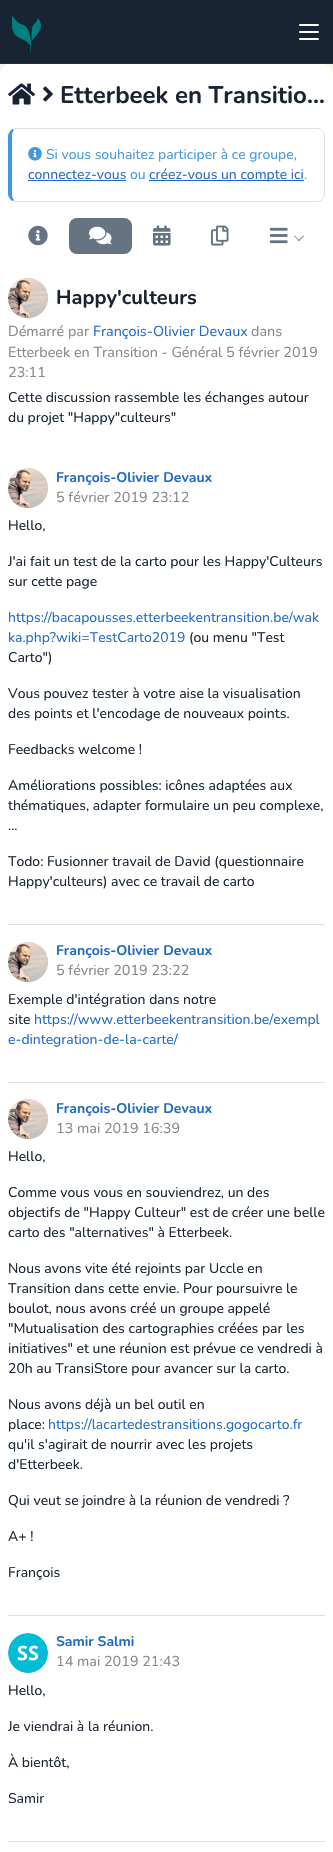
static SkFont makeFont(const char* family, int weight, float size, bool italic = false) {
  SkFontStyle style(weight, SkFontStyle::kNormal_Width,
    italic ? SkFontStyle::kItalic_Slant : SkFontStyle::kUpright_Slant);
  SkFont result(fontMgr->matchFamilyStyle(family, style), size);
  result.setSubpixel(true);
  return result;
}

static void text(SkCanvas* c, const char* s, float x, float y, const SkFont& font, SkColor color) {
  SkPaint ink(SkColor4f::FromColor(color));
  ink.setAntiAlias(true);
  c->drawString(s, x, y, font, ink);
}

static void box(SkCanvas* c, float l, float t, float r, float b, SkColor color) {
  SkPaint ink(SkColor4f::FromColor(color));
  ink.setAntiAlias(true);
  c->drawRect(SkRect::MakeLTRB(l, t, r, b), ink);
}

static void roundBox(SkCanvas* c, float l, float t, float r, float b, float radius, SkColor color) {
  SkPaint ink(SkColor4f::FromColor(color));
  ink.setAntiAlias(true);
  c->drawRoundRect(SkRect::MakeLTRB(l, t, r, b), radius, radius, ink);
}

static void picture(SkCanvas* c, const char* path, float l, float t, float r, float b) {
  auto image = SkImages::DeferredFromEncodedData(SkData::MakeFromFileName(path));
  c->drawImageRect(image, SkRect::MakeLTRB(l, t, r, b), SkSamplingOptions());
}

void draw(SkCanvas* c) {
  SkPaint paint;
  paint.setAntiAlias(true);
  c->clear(0xfff5f4e9);
  box(c, 0, 0, 333, 63, 0xff182433);
  box(c, 0, 63, 333, 64, 0xff1f2e41);
  picture(c, "img_01.png", 11, 15, 45, 52);
  roundBox(c, 299, 31, 319, 33, 1, 0xfffcfdfe);
  roundBox(c, 299, 24, 319, 26, 1, 0xfffcfdfe);
  roundBox(c, 299, 38, 319, 40, 1, 0xfffcfdfe);
  roundBox(c, 0, 64, 333, 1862, 10, 0xffffffff);
  picture(c, "img_02.png", 8, 83, 35, 105);
  picture(c, "img_03.png", 43, 86, 53, 102);
  SkFont face1 = makeFont("Nunito", 700, 24);
  text(c, "Etterbeek en Transitio…", 60, 103, face1, 0xff182433);
  paint.setColor(0xffdce0e5);
  c->drawPath(SkPathBuilder().moveTo(16, 128).lineTo(12, 129).lineTo(14, 130).lineTo(16, 129).lineTo(317, 129).cubicTo(319, 129, 321, 130, 322, 131).lineTo(322, 130).cubicTo(321, 129, 319, 128, 317, 128).close().detach(), paint);
  c->drawPath(SkPathBuilder().moveTo(325, 194).lineTo(325, 136).cubicTo(325, 134, 324, 132, 322, 130).lineTo(322, 131).cubicTo(323, 132, 324, 134, 324, 136).lineTo(324, 194).cubicTo(324, 196, 323, 198, 322, 199).lineTo(322, 200).cubicTo(324, 198, 325, 196, 325, 194).close().detach(), paint);
  c->drawPath(SkPathBuilder().moveTo(16, 202).lineTo(317, 202).cubicTo(319, 202, 321, 201, 322, 200).lineTo(322, 199).cubicTo(321, 200, 319, 201, 317, 201).lineTo(16, 201).lineTo(14, 200).lineTo(12, 201).close().detach(), paint);
  paint.setColor(0xff4299e1);
  c->drawPath(SkPathBuilder().moveTo(8, 136).lineTo(8, 194).cubicTo(8, 197, 10, 199, 12, 201).lineTo(14, 200).cubicTo(13, 199, 12, 197, 12, 194).lineTo(12, 136).cubicTo(12, 133, 13, 131, 14, 130).lineTo(12, 129).cubicTo(10, 131, 8, 133, 8, 136).close().detach(), paint);
  picture(c, "img_04.png", 28, 147, 42, 161);
  SkFont face2 = makeFont("Nunito", 400, 14);
  text(c, "Si vous souhaitez participer à ce groupe,", 46, 159, face2, 0xff4299e1);
  text(c, "connectez-vous", 28, 179, face2, 0xff206bc4);
  box(c, 28, 180, 126, 181, 0xff206bc4);
  text(c, "ou", 130, 179, face2, 0xff4299e1);
  box(c, 149, 180, 304, 181, 0xff206bc4);
  text(c, "créez-vous un compte ici", 149, 179, face2, 0xff206bc4);
  text(c, ".", 304, 179, face2, 0xff4299e1);
  picture(c, "img_05.png", 28, 225, 48, 246);
  roundBox(c, 69, 218, 132, 254, 8, 0xff667382);
  picture(c, "img_06.png", 89, 226, 112, 245);
  picture(c, "img_07.png", 153, 225, 171, 246);
  picture(c, "img_08.png", 211, 225, 229, 246);
  picture(c, "img_09.png", 270, 227, 288, 244);
  paint.setColor(0xff667382);
  c->drawPath(SkPathBuilder().moveTo(298, 240.5f).lineTo(303.5f, 235.5f).lineTo(304, 236).lineTo(299, 241).close().detach(), paint);
  c->drawPath(SkPathBuilder().moveTo(294, 236).lineTo(294.5f, 235.5f).lineTo(299.5f, 240.5f).lineTo(299, 241).close().detach(), paint);
  paint.setColor(0xfff6f8fb);
  c->drawCircle(28, 298, 20, paint);
  paint.setStyle(SkPaint::kStroke_Style);
  paint.setStrokeWidth(1);
  paint.setColor(0x24042045);
  c->drawCircle(28, 298, 19.5f, paint);
  picture(c, "img_10.png", 8, 278, 48, 318);
  SkFont face3 = makeFont("Nunito", 700, 20);
  text(c, "Happy'culteurs", 56, 304, face3, 0xff182433);
  SkFont face4 = makeFont("Nunito", 400, 14.4f);
  text(c, "Démarré par", 8, 336, face4, 0xff888888);
  text(c, "François-Olivier Devaux", 93, 336, face4, 0xff206bc4);
  text(c, "dans", 251, 336, face4, 0xff888888);
  text(c, "Etterbeek en Transition - Général 5 février 2019", 8, 357, face4, 0xff888888);
  text(c, "23:11", 8, 377, face4, 0xff888888);
  text(c, "Cette discussion rassemble les échanges autour", 8, 402, face2, 0xff182433);
  text(c, "du projet \"Happy\"culteurs\"", 8, 422, face2, 0xff182433);
  box(c, 8, 924, 325, 925, 0xffdce0e5);
  paint.setStyle(SkPaint::kFill_Style);
  paint.setColor(0xfff6f8fb);
  c->drawCircle(28, 488, 20, paint);
  paint.setStyle(SkPaint::kStroke_Style);
  paint.setColor(0x24042045);
  c->drawCircle(28, 488, 19.5f, paint);
  picture(c, "img_10.png", 8, 468, 48, 508);
  SkFont face5 = makeFont("Nunito", 700, 14);
  text(c, "François-Olivier Devaux", 56, 482, face5, 0xff206bc4);
  text(c, "5 février 2019 23:12", 56, 502, face4, 0xff888888);
  text(c, "Hello,", 8, 530, face2, 0xff182433);
  text(c, "J'ai fait un test de la carto pour les Happy'Culteurs", 8, 566, face2, 0xff182433);
  text(c, "sur cette page", 8, 586, face2, 0xff182433);
  text(c, "https://bacapousses.etterbeekentransition.be/wak", 8, 622, face2, 0xff206bc4);
  text(c, "ka.php?wiki=TestCarto2019", 8, 642, face2, 0xff206bc4);
  text(c, "(ou menu \"Test", 189, 642, face2, 0xff182433);
  text(c, "Carto\")", 8, 662, face2, 0xff182433);
  text(c, "Vous pouvez tester à votre aise la visualisation", 8, 698, face2, 0xff182433);
  text(c, "des points et l'encodage de nouveaux points.", 8, 718, face2, 0xff182433);
  text(c, "Feedbacks welcome !", 8, 754, face2, 0xff182433);
  text(c, "Améliorations possibles: icônes adaptées aux", 8, 790, face2, 0xff182433);
  text(c, "thématiques, adapter formulaire un peu complexe,", 8, 810, face2, 0xff182433);
  text(c, "...", 8, 830, face2, 0xff182433);
  text(c, "Todo: Fusionner travail de David (questionnaire", 8, 866, face2, 0xff182433);
  text(c, "Happy'culteurs) avec ce travail de carto", 8, 886, face2, 0xff182433);
  box(c, 8, 1082, 325, 1083, 0xffdce0e5);
  paint.setStyle(SkPaint::kFill_Style);
  paint.setColor(0xfff6f8fb);
  c->drawCircle(28, 962, 20, paint);
  paint.setStyle(SkPaint::kStroke_Style);
  paint.setColor(0x24042045);
  c->drawCircle(28, 962, 19.5f, paint);
  picture(c, "img_10.png", 8, 942, 48, 982);
  text(c, "François-Olivier Devaux", 56, 955, face5, 0xff206bc4);
  text(c, "5 février 2019 23:22", 56, 975, face4, 0xff888888);
  text(c, "Exemple d'intégration dans notre", 8, 1004, face2, 0xff182433);
  text(c, "site", 8, 1024, face2, 0xff182433);
  text(c, "https://www.etterbeekentransition.be/exempl", 34, 1024, face2, 0xff206bc4);
  text(c, "e-dintegration-de-la-carte/", 8, 1044, face2, 0xff206bc4);
  box(c, 8, 1615, 325, 1616, 0xffdce0e5);
  paint.setStyle(SkPaint::kFill_Style);
  paint.setColor(0xfff6f8fb);
  c->drawCircle(28, 1119, 20, paint);
  paint.setStyle(SkPaint::kStroke_Style);
  paint.setColor(0x24042045);
  c->drawCircle(28, 1119, 19.5f, paint);
  picture(c, "img_10.png", 8, 1099, 48, 1139);
  text(c, "François-Olivier Devaux", 56, 1113, face5, 0xff206bc4);
  text(c, "13 mai 2019 16:39", 56, 1133, face4, 0xff888888);
  text(c, "Hello,", 8, 1161, face2, 0xff182433);
  text(c, "Comme vous vous en souviendrez, un des", 8, 1197, face2, 0xff182433);
  text(c, "objectifs de \"Happy Culteur\" est de créer une belle", 8, 1217, face2, 0xff182433);
  text(c, "carto des \"alternatives\" à Etterbeek.", 8, 1237, face2, 0xff182433);
  text(c, "Nous avons vite été rejoints par Uccle en", 8, 1273, face2, 0xff182433);
  text(c, "Transition dans cette envie. Pour poursuivre le", 8, 1293, face2, 0xff182433);
  text(c, "boulot, nous avons créé un groupe appelé", 8, 1313, face2, 0xff182433);
  text(c, "\"Mutualisation des cartographies créées par les", 8, 1333, face2, 0xff182433);
  text(c, "initiatives\" et une réunion est prévue ce vendredi à", 8, 1353, face2, 0xff182433);
  text(c, "20h au TransiStore pour avancer sur la carto.", 8, 1373, face2, 0xff182433);
  text(c, "Nous avons déjà un bel outil en", 8, 1409, face2, 0xff182433);
  text(c, "place:", 8, 1429, face2, 0xff182433);
  text(c, "https://lacartedestransitions.gogocarto.fr", 48, 1429, face2, 0xff206bc4);
  text(c, "qu'il s'agirait de nourrir avec les projets", 8, 1449, face2, 0xff182433);
  text(c, "d'Etterbeek.", 8, 1469, face2, 0xff182433);
  text(c, "Qui veut se joindre à la réunion de vendredi ?", 8, 1505, face2, 0xff182433);
  text(c, "A+ !", 8, 1541, face2, 0xff182433);
  text(c, "François", 8, 1577, face2, 0xff182433);
  box(c, 8, 1841, 325, 1842, 0xffdce0e5);
  paint.setStyle(SkPaint::kFill_Style);
  paint.setColor(0xfff6f8fb);
  c->drawCircle(28, 1653, 20, paint);
  paint.setStyle(SkPaint::kStroke_Style);
  paint.setColor(0x24042045);
  c->drawCircle(28, 1653, 19.5f, paint);
  picture(c, "img_11.png", 8, 1633, 48, 1673);
  text(c, "Samir Salmi", 56, 1646, face5, 0xff206bc4);
  text(c, "14 mai 2019 21:43", 56, 1666, face4, 0xff888888);
  text(c, "Hello,", 8, 1695, face2, 0xff182433);
  text(c, "Je viendrai à la réunion.", 8, 1731, face2, 0xff182433);
  text(c, "À bientôt,", 8, 1767, face2, 0xff182433);
  text(c, "Samir", 8, 1803, face2, 0xff182433);
}
